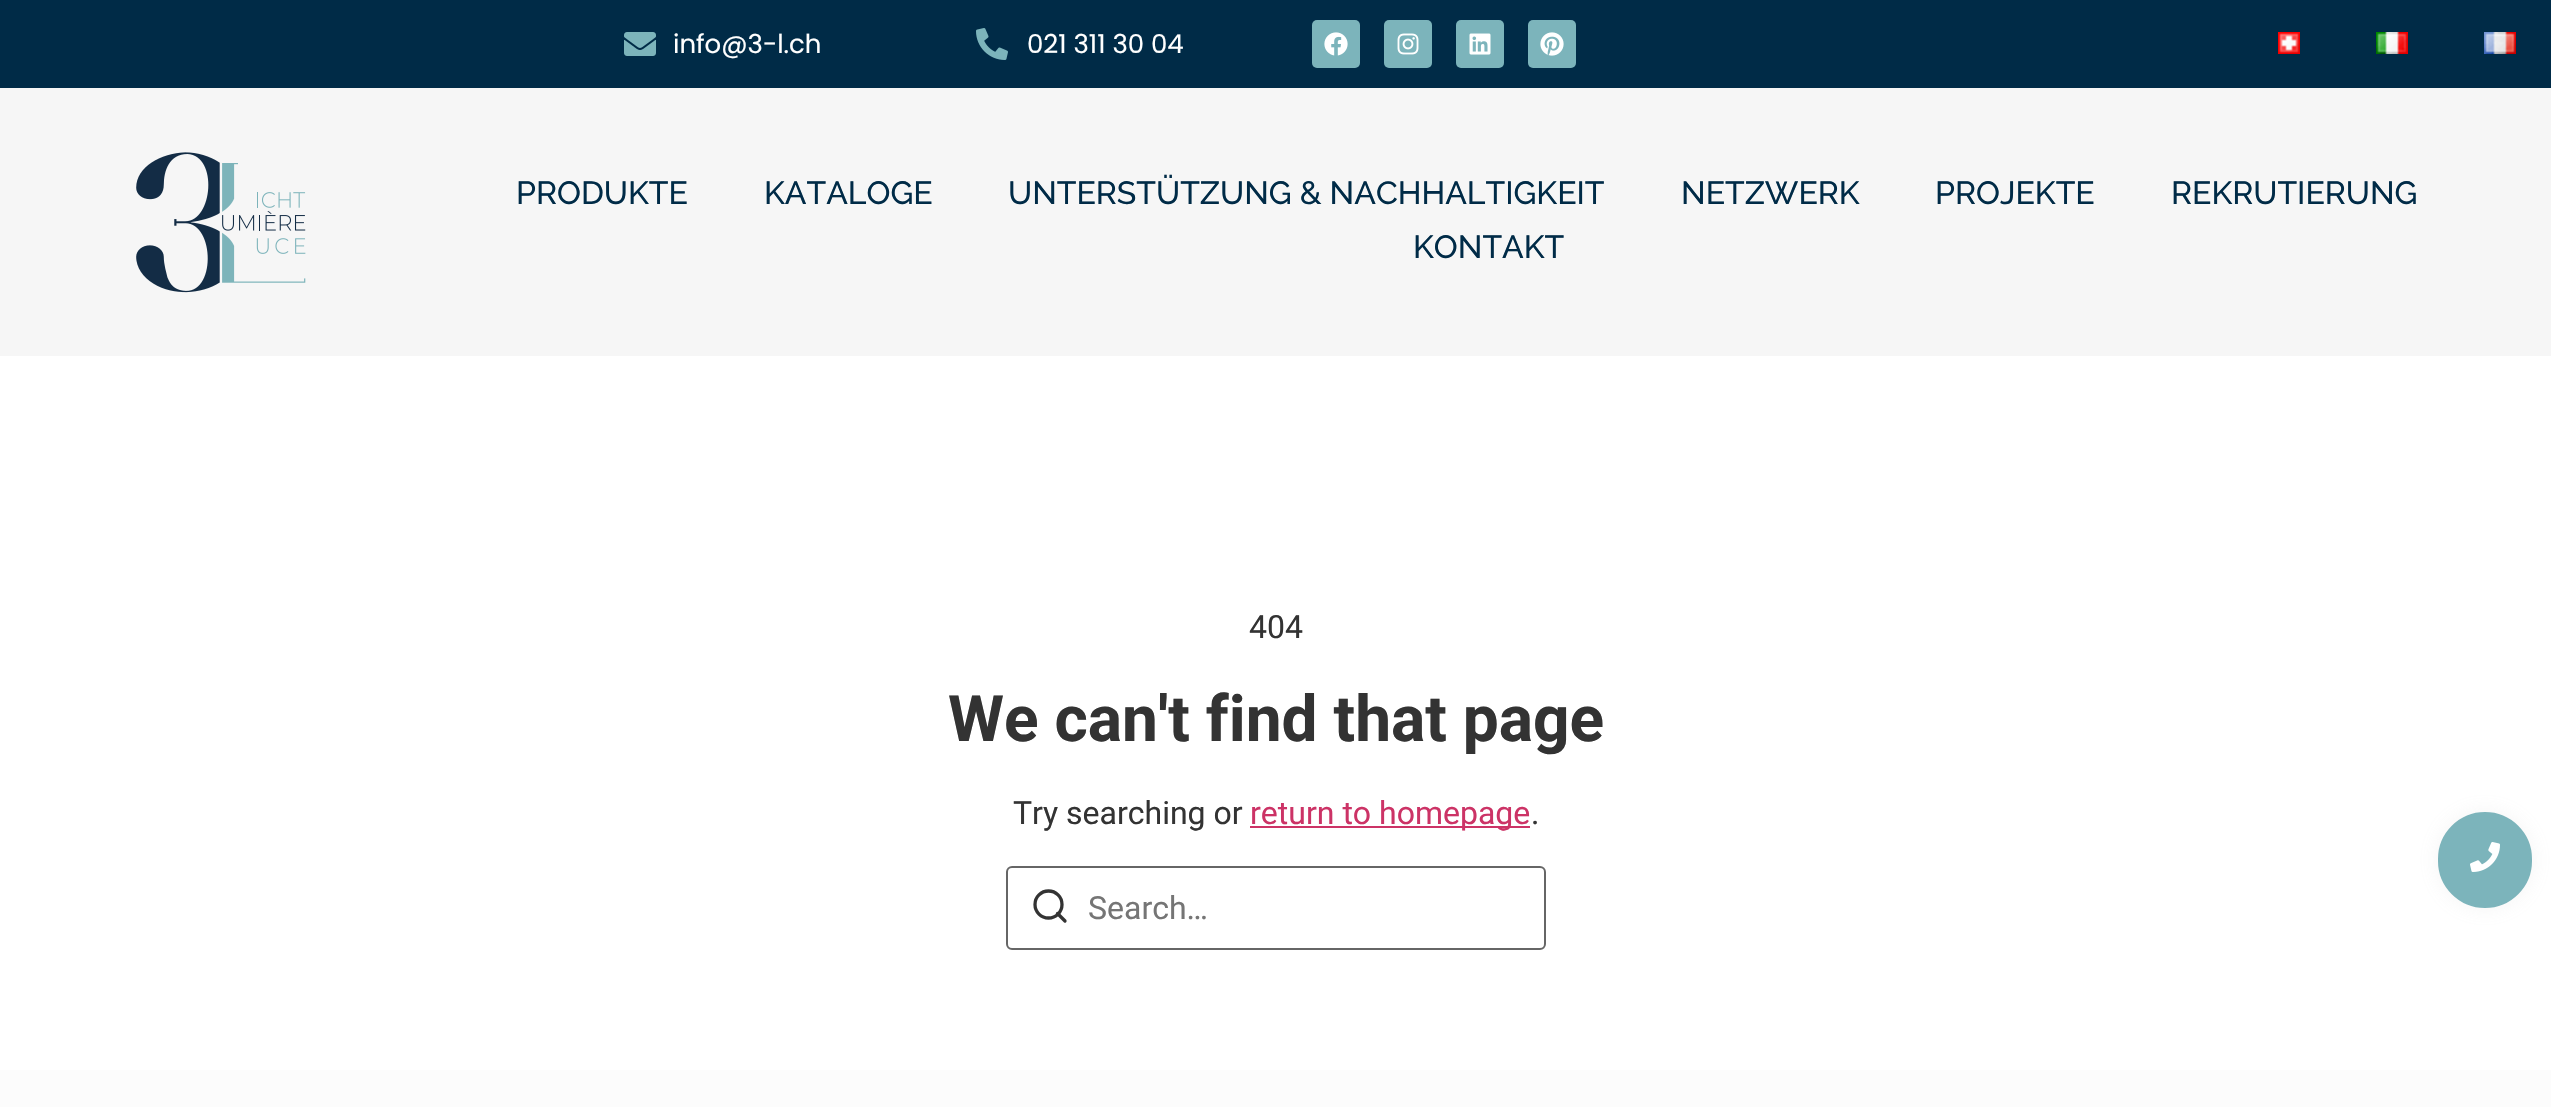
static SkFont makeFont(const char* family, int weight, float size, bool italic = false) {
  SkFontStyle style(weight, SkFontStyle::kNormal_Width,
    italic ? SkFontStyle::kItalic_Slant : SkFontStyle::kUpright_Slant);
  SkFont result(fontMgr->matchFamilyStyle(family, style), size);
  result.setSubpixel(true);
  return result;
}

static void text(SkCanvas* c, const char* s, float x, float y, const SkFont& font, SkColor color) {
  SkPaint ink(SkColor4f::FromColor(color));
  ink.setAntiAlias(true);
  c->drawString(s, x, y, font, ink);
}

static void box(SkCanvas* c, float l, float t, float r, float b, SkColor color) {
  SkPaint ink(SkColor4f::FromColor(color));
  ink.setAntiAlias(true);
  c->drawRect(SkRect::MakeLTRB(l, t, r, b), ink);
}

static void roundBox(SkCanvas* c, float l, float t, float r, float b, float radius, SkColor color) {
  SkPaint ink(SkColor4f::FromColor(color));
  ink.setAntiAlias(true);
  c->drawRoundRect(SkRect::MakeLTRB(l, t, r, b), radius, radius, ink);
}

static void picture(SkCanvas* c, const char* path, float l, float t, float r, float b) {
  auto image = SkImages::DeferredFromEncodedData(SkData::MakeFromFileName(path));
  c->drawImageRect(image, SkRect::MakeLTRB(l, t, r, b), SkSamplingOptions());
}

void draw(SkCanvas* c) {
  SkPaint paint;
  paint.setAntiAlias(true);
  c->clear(0xffffffff);
  box(c, 0, 0, 2551, 88, 0xff002b47);
  picture(c, "img_01.png", 624, 32, 656, 56);
  SkFont face1 = makeFont("Poppins", 400, 26);
  text(c, "info@3-l.ch", 673, 53, face1, 0xffffffff);
  picture(c, "img_02.png", 976, 28, 1008, 60);
  text(c, "021 311 30 04", 1027, 53, face1, 0xffffffff);
  roundBox(c, 1312, 20, 1360, 68, 5, 0xff7cb4bb);
  picture(c, "img_03.png", 1324, 32, 1348, 56);
  roundBox(c, 1384, 20, 1432, 68, 5, 0xff7cb4bb);
  picture(c, "img_04.png", 1397, 33, 1419, 55);
  roundBox(c, 1456, 20, 1504, 68, 5, 0xff7cb4bb);
  picture(c, "img_05.png", 1469, 33, 1491, 55);
  roundBox(c, 1528, 20, 1576, 68, 5, 0xff7cb4bb);
  picture(c, "img_06.png", 1540, 32, 1564, 56);
  picture(c, "img_07.png", 2278, 32, 2300, 54);
  picture(c, "img_08.png", 2376, 32, 2408, 54);
  picture(c, "img_09.png", 2484, 32, 2516, 54);
  box(c, 0, 88, 2551, 356, 0xfff6f6f6);
  picture(c, "img_10.png", 136, 152, 306, 293);
  SkFont face2 = makeFont("Raleway", 500, 32);
  text(c, "PRODUKTE", 516, 204, face2, 0xff002b47);
  text(c, "KATALOGE", 764, 204, face2, 0xff002b47);
  text(c, "UNTERSTÜTZUNG & NACHHALTIGKEIT", 1008, 204, face2, 0xff002b47);
  text(c, "NETZWERK", 1681, 204, face2, 0xff002b47);
  text(c, "PROJEKTE", 1935, 204, face2, 0xff002b47);
  text(c, "REKRUTIERUNG", 2171, 204, face2, 0xff002b47);
  text(c, "KONTAKT", 1413, 258, face2, 0xff002b47);
  SkFont face3 = makeFont("Roboto", 400, 32);
  text(c, "404", 1249, 638, face3, 0xff333333);
  SkFont face4 = makeFont("Roboto", 700, 64);
  text(c, "We can't find that page", 948, 741, face4, 0xff333333);
  text(c, "Try searching or", 1013, 824, face3, 0xff333333);
  box(c, 1250, 826, 1530, 828, 0xffcc3366);
  text(c, "return to homepage", 1250, 824, face3, 0xffcc3366);
  text(c, ".", 1531, 824, face3, 0xff333333);
  paint.setStyle(SkPaint::kStroke_Style);
  paint.setStrokeWidth(2);
  paint.setColor(0xff666666);
  c->drawRoundRect(SkRect::MakeLTRB(1007, 867, 1545, 949), 5, 5, paint);
  paint.setStrokeWidth(3.3f);
  paint.setColor(0xff333333);
  c->drawCircle(1048.5f, 904.5f, 13.5f, paint);
  paint.setStrokeCap(SkPaint::kRound_Cap);
  paint.setStrokeJoin(SkPaint::kRound_Join);
  c->drawPath(SkPathBuilder().moveTo(1065, 921).lineTo(1057.5f, 913.5f).detach(), paint);
  text(c, "Search…", 1088, 919, face3, 0xff757575);
  paint.setStyle(SkPaint::kFill_Style);
  paint.setColor(0x26b2b2b2);
  paint.setMaskFilter(SkMaskFilter::MakeBlur(kNormal_SkBlurStyle, 10));
  c->drawRoundRect(SkRect::MakeLTRB(2438, 812, 2532, 908), 47, 47, paint);
  paint.setMaskFilter(nullptr);
  paint.setColor(0xff7cb4bb);
  c->drawRoundRect(SkRect::MakeLTRB(2439, 813, 2531, 907), 46, 46, paint);
  paint.setStyle(SkPaint::kStroke_Style);
  paint.setStrokeWidth(2);
  paint.setStrokeCap(SkPaint::kButt_Cap);
  paint.setStrokeJoin(SkPaint::kMiter_Join);
  c->drawRoundRect(SkRect::MakeLTRB(2439, 813, 2531, 907), 46, 46, paint);
  picture(c, "img_11.png", 2470, 842, 2500, 872);
  box(c, 0, 1070, 2551, 1107, 0xfffcfcfc);
}
